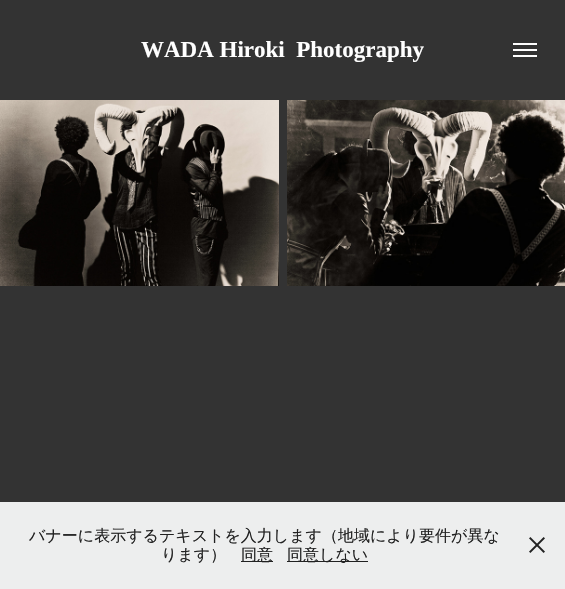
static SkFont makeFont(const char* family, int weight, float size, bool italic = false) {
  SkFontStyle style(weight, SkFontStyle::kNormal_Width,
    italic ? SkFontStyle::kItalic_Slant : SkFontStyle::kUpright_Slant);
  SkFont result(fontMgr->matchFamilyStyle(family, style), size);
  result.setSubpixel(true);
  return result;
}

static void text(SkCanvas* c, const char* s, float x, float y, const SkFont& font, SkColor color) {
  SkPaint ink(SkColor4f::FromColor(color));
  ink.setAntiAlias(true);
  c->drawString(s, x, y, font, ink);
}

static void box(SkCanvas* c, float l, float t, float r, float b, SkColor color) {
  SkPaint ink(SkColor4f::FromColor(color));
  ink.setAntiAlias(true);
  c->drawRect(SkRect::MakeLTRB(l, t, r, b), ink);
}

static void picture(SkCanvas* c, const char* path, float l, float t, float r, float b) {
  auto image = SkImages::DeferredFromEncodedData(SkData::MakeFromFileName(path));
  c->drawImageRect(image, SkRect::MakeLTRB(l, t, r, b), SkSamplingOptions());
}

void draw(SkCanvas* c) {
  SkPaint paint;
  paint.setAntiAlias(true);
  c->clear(0xff333333);
  SkFont face1 = makeFont("Liberation Serif", 700, 23);
  text(c, "WADA Hiroki  Photography", 141, 57, face1, 0xffffffff);
  box(c, 513, 43, 537, 45, 0xffffffff);
  box(c, 513, 49, 537, 51, 0xffffffff);
  box(c, 513, 55, 537, 57, 0xffffffff);
  picture(c, "img_01.png", 0, 100, 279, 286);
  picture(c, "img_02.png", 287, 100, 565, 286);
  box(c, 0, 502, 565, 589, 0xffedeeee);
  SkFont face2 = makeFont("WenQuanYi Zen Hei", 500, 16);
  text(c, "バナーに表示するテキストを入力します（地域により要件が異な", 29, 541, face2, 0xff212121);
  text(c, "ります）", 161, 560, face2, 0xff212121);
  box(c, 241, 561, 273, 562, 0xff212121);
  text(c, "同意", 241, 560, face2, 0xff212121);
  box(c, 287, 561, 368, 562, 0xff212121);
  text(c, "同意しない", 287, 560, face2, 0xff212121);
  picture(c, "img_03.png", 529, 537, 545, 553);
}
